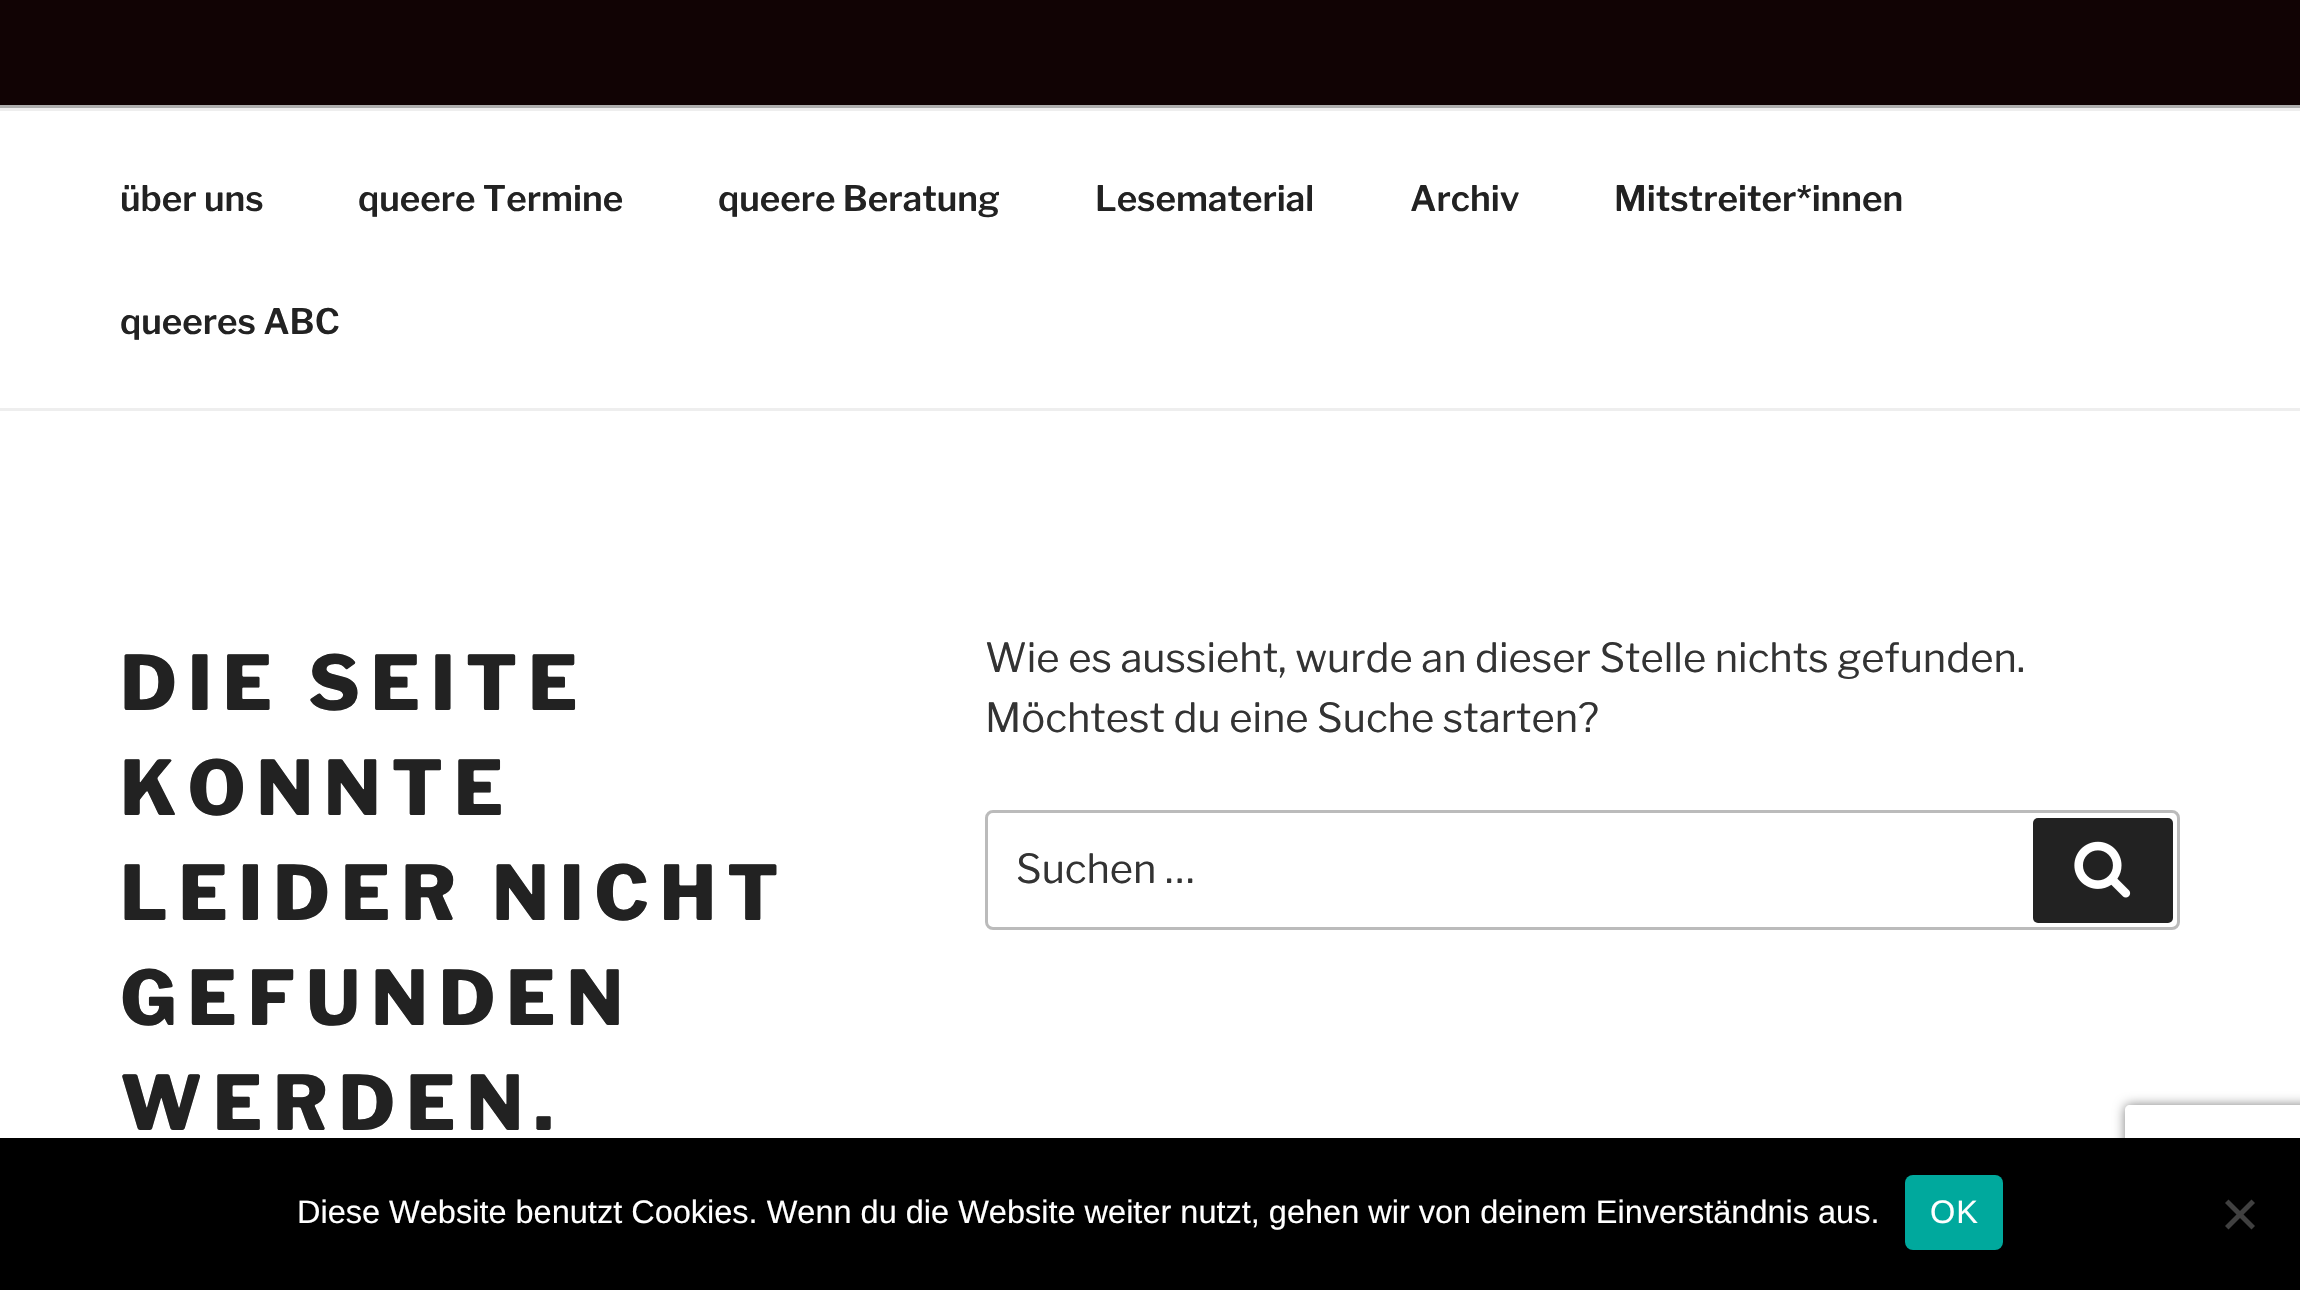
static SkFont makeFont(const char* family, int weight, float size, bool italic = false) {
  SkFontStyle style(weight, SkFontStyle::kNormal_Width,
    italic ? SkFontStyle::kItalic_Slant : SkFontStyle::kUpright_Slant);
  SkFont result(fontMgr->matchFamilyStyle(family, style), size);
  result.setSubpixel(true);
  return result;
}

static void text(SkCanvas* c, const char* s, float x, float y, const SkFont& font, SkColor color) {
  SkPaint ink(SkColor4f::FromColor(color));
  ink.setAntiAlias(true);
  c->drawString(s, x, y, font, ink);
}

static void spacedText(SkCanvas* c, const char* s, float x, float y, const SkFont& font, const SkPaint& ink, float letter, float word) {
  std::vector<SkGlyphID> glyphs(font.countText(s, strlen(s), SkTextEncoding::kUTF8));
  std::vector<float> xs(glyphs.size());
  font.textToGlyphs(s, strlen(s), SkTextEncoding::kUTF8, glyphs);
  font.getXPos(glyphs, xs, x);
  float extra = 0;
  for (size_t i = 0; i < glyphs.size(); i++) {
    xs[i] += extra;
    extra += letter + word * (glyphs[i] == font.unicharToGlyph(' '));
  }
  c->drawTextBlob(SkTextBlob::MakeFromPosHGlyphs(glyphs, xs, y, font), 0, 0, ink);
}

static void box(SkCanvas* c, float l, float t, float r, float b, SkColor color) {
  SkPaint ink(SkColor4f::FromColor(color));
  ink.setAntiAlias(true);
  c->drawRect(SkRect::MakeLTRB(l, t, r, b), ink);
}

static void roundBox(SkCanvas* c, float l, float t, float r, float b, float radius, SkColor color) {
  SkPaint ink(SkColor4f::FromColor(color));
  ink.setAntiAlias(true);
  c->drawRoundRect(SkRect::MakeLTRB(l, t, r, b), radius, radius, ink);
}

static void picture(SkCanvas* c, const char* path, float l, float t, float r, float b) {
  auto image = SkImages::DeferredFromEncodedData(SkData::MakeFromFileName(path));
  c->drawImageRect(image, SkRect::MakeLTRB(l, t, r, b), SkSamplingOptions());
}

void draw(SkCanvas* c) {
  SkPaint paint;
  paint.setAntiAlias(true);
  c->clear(0xffffffff);
  box(c, 0, 105, 2300, 108, 0xfffafafa);
  box(c, 0, 0, 2300, 105, 0xff180405);
  {
    const SkColor colors[] = {0x00000000, 0x4d000000, 0x4d000000};
    const float stops[] = {0, 0.75f, 1};
    const SkPoint ends[] = {{1150, -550}, {1150, 108}};
    paint.setShader(SkGradientShader::MakeLinear(ends, colors, stops, 3, SkTileMode::kClamp));
    paint.setAlpha(255);
  }
  c->drawRect(SkRect::MakeLTRB(0, 0, 2300, 108), paint);
  box(c, 0, 108, 2300, 111, 0xffeeeeee);
  box(c, 0, 408, 2300, 411, 0xffeeeeee);
  SkFont face1 = makeFont("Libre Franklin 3", 100, 35);
  text(c, "über uns", 120, 211, face1, 0xff222222);
  text(c, "queere Termine", 358, 211, face1, 0xff222222);
  text(c, "queere Beratung", 718, 211, face1, 0xff222222);
  text(c, "Lesematerial", 1095, 211, face1, 0xff222222);
  text(c, "Archiv", 1410, 211, face1, 0xff222222);
  text(c, "Mitstreiter*innen", 1614, 211, face1, 0xff222222);
  text(c, "queeres ABC", 120, 334, face1, 0xff222222);
  SkFont face2 = makeFont("Libre Franklin", 100, 75);
  paint.setShader(nullptr);
  paint.setColor(0xff222222);
  spacedText(c, "DIE SEITE", 120, 710, face2, paint, 10.5f, 0);
  spacedText(c, "KONNTE", 120, 815, face2, paint, 10.5f, 0);
  spacedText(c, "LEIDER NICHT", 120, 920, face2, paint, 10.5f, 0);
  spacedText(c, "GEFUNDEN", 120, 1025, face2, paint, 10.5f, 0);
  spacedText(c, "WERDEN.", 120, 1130, face2, paint, 10.5f, 0);
  SkFont face3 = makeFont("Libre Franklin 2", 100, 40);
  text(c, "Wie es aussieht, wurde an dieser Stelle nichts gefunden.", 985, 672, face3, 0xff333333);
  text(c, "Möchtest du eine Suche starten?", 985, 732, face3, 0xff333333);
  paint.setStyle(SkPaint::kStroke_Style);
  paint.setStrokeWidth(3);
  paint.setColor(0xffbbbbbb);
  c->drawRoundRect(SkRect::MakeLTRB(986.5f, 811.5f, 2178.5f, 928.5f), 6.5f, 6.5f, paint);
  text(c, "Suchen …", 1016, 883, face3, 0xff333333);
  roundBox(c, 2033, 818, 2173, 923, 5, 0xff222222);
  picture(c, "img_01.png", 2074, 841, 2131, 898);
  c->save();
  c->clipPath(SkPathBuilder(SkPathFillType::kEvenOdd).moveTo(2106, 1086).lineTo(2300, 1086).lineTo(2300, 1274).lineTo(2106, 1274).close().moveTo(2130, 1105).lineTo(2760, 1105).cubicTo(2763, 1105, 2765, 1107, 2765, 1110).lineTo(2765, 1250).cubicTo(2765, 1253, 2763, 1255, 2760, 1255).lineTo(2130, 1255).cubicTo(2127, 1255, 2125, 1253, 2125, 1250).lineTo(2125, 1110).cubicTo(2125, 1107, 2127, 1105, 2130, 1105).close().detach(), true);
  paint.setStyle(SkPaint::kFill_Style);
  paint.setColor(0xff808080);
  paint.setMaskFilter(SkMaskFilter::MakeBlur(kNormal_SkBlurStyle, 6));
  c->drawRoundRect(SkRect::MakeLTRB(2125, 1105, 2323, 1255), 5, 5, paint);
  paint.setMaskFilter(nullptr);
  c->restore();
  box(c, 0, 1138, 2300, 1290, 0xff000000);
  SkFont face4 = makeFont("Liberation Sans", 400, 32.5f);
  text(c, "Diese Website benutzt Cookies. Wenn du die Website weiter nutzt, gehen wir von deinem Einverständnis aus.", 297, 1223, face4, 0xffffffff);
  roundBox(c, 1905, 1175, 2003, 1250, 8, 0xff00a99d);
  paint.setColor(0xffffffff);
  spacedText(c, "OK", 1930, 1223, face4, paint, 1, 0);
  paint.setColor(0xff404040);
  c->drawPath(SkPathBuilder().moveTo(2251.5f, 1199.5f).lineTo(2255, 1203).lineTo(2228.5f, 1229.5f).lineTo(2225, 1226).close().detach(), paint);
  c->drawPath(SkPathBuilder().moveTo(2225, 1203).lineTo(2228.5f, 1199.5f).lineTo(2255, 1226).lineTo(2251.5f, 1229.5f).close().detach(), paint);
}
